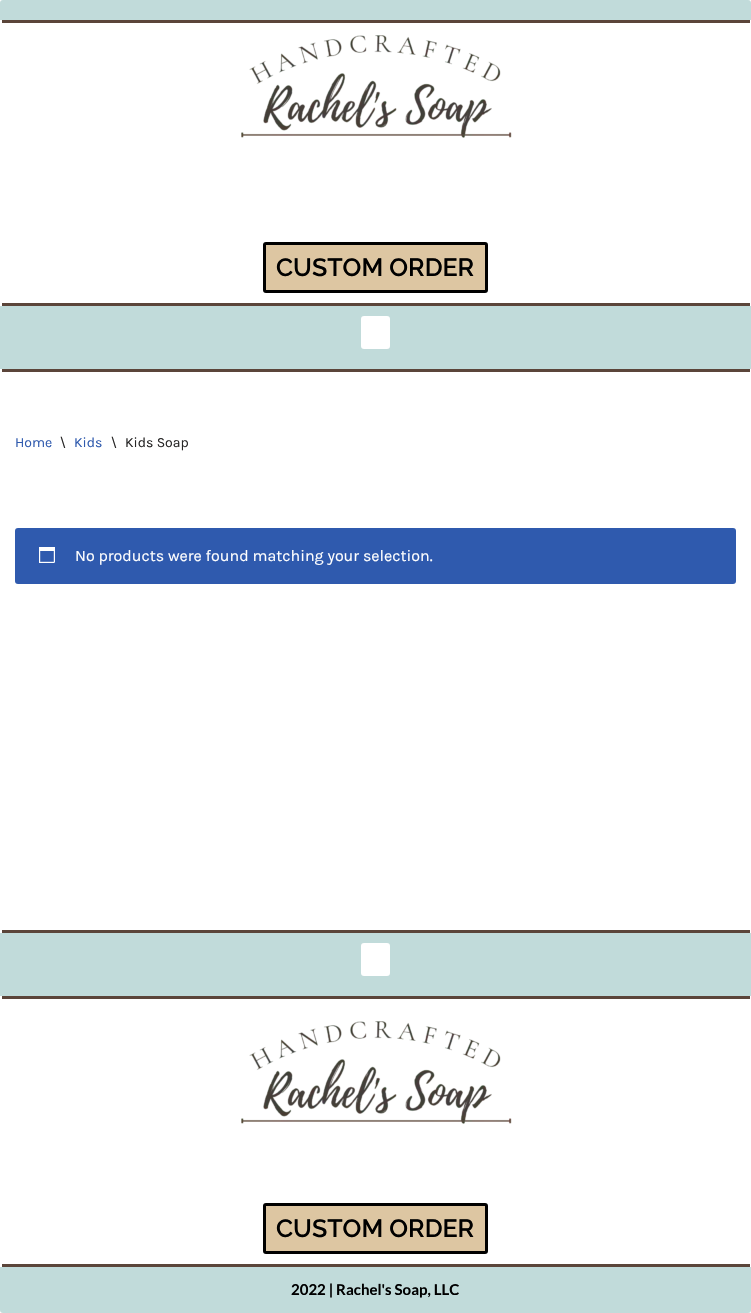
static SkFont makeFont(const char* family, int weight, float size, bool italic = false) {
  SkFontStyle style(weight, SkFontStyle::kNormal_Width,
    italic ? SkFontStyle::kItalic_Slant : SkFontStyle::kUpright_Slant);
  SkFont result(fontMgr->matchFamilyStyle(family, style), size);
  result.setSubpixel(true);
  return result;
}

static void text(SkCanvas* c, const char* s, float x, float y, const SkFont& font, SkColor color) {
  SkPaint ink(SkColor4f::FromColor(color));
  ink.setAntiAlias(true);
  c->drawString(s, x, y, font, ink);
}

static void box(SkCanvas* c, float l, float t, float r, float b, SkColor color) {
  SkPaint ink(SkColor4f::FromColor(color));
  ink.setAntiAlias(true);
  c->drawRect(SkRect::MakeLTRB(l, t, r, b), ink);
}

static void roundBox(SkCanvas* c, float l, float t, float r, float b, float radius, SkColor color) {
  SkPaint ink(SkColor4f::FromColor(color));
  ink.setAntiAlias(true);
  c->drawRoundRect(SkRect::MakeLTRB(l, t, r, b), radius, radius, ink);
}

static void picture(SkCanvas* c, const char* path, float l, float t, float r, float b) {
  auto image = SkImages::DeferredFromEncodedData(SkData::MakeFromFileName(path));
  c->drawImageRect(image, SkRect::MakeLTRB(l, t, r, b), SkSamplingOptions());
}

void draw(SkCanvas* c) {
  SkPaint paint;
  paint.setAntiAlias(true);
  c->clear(0xffffffff);
  paint.setColor(0xffc1dbda);
  c->drawPath(SkPathBuilder().moveTo(3, 0).lineTo(748, 0).cubicTo(750, 0, 751, 1, 751, 3).lineTo(751, 20).lineTo(0, 20).lineTo(0, 3).cubicTo(0, 1, 1, 0, 3, 0).close().detach(), paint);
  box(c, 2, 20, 750, 23, 0xff5b453a);
  picture(c, "img_01.png", 241, 35, 512, 138);
  paint.setColor(0xffddc6a2);
  c->drawRoundRect(SkRect::MakeLTRB(264.5f, 243.5f, 486.5f, 291.5f), 1.5f, 1.5f, paint);
  paint.setStyle(SkPaint::kStroke_Style);
  paint.setStrokeWidth(3);
  paint.setColor(0xff000000);
  c->drawRoundRect(SkRect::MakeLTRB(264.5f, 243.5f, 486.5f, 291.5f), 1.5f, 1.5f, paint);
  SkFont face1 = makeFont("Raleway", 600, 25);
  text(c, "CUSTOM ORDER", 276, 276, face1, 0xff000000);
  paint.setStyle(SkPaint::kFill_Style);
  paint.setColor(0xffc1dbda);
  c->drawPath(SkPathBuilder().moveTo(3, 306).lineTo(751, 306).lineTo(751, 369).lineTo(0, 369).lineTo(0, 306).close().detach(), paint);
  box(c, 2, 303, 750, 306, 0xff5b453a);
  box(c, 2, 369, 750, 372, 0xff5b453a);
  roundBox(c, 361, 316, 390, 349, 3, 0xffffffff);
  SkFont face2 = makeFont("Karla", 400, 14);
  text(c, "Home", 15, 447, face2, 0xff2f5aae);
  text(c, "\\", 60, 447, face2, 0xff272626);
  text(c, "Kids", 74, 447, face2, 0xff2f5aae);
  text(c, "\\", 111, 447, face2, 0xff272626);
  text(c, "Kids Soap", 125, 447, face2, 0xff272626);
  roundBox(c, 15, 528, 736, 584, 3, 0xff2f5aae);
  picture(c, "img_02.png", 39, 547, 55, 563);
  SkFont face3 = makeFont("Karla", 400, 16);
  text(c, "No products were found matching your selection.", 75, 561, face3, 0xffffffff);
  c->drawPath(SkPathBuilder().moveTo(3, 933).lineTo(751, 933).lineTo(751, 996).lineTo(0, 996).lineTo(0, 933).close().detach(), paint);
  box(c, 2, 930, 750, 933, 0xff5b453a);
  box(c, 2, 996, 750, 999, 0xff5b453a);
  roundBox(c, 361, 943, 390, 976, 3, 0xffffffff);
  picture(c, "img_01.png", 241, 1021, 512, 1124);
  paint.setColor(0xffddc6a2);
  c->drawRoundRect(SkRect::MakeLTRB(264.5f, 1204.5f, 486.5f, 1252.5f), 1.5f, 1.5f, paint);
  paint.setStyle(SkPaint::kStroke_Style);
  paint.setColor(0xff000000);
  c->drawRoundRect(SkRect::MakeLTRB(264.5f, 1204.5f, 486.5f, 1252.5f), 1.5f, 1.5f, paint);
  text(c, "CUSTOM ORDER", 276, 1237, face1, 0xff000000);
  paint.setStyle(SkPaint::kFill_Style);
  paint.setColor(0xffc1dbda);
  c->drawPath(SkPathBuilder().moveTo(3, 1267).lineTo(751, 1267).lineTo(751, 1310).cubicTo(751, 1312, 750, 1313, 748, 1313).lineTo(3, 1313).cubicTo(1, 1313, 0, 1312, 0, 1310).lineTo(0, 1267).close().detach(), paint);
  box(c, 2, 1264, 750, 1267, 0xff5b453a);
  SkFont face4 = makeFont("Lato", 700, 15);
  text(c, "2022 | Rachel's Soap, LLC", 291, 1295, face4, 0xff000000);
}
